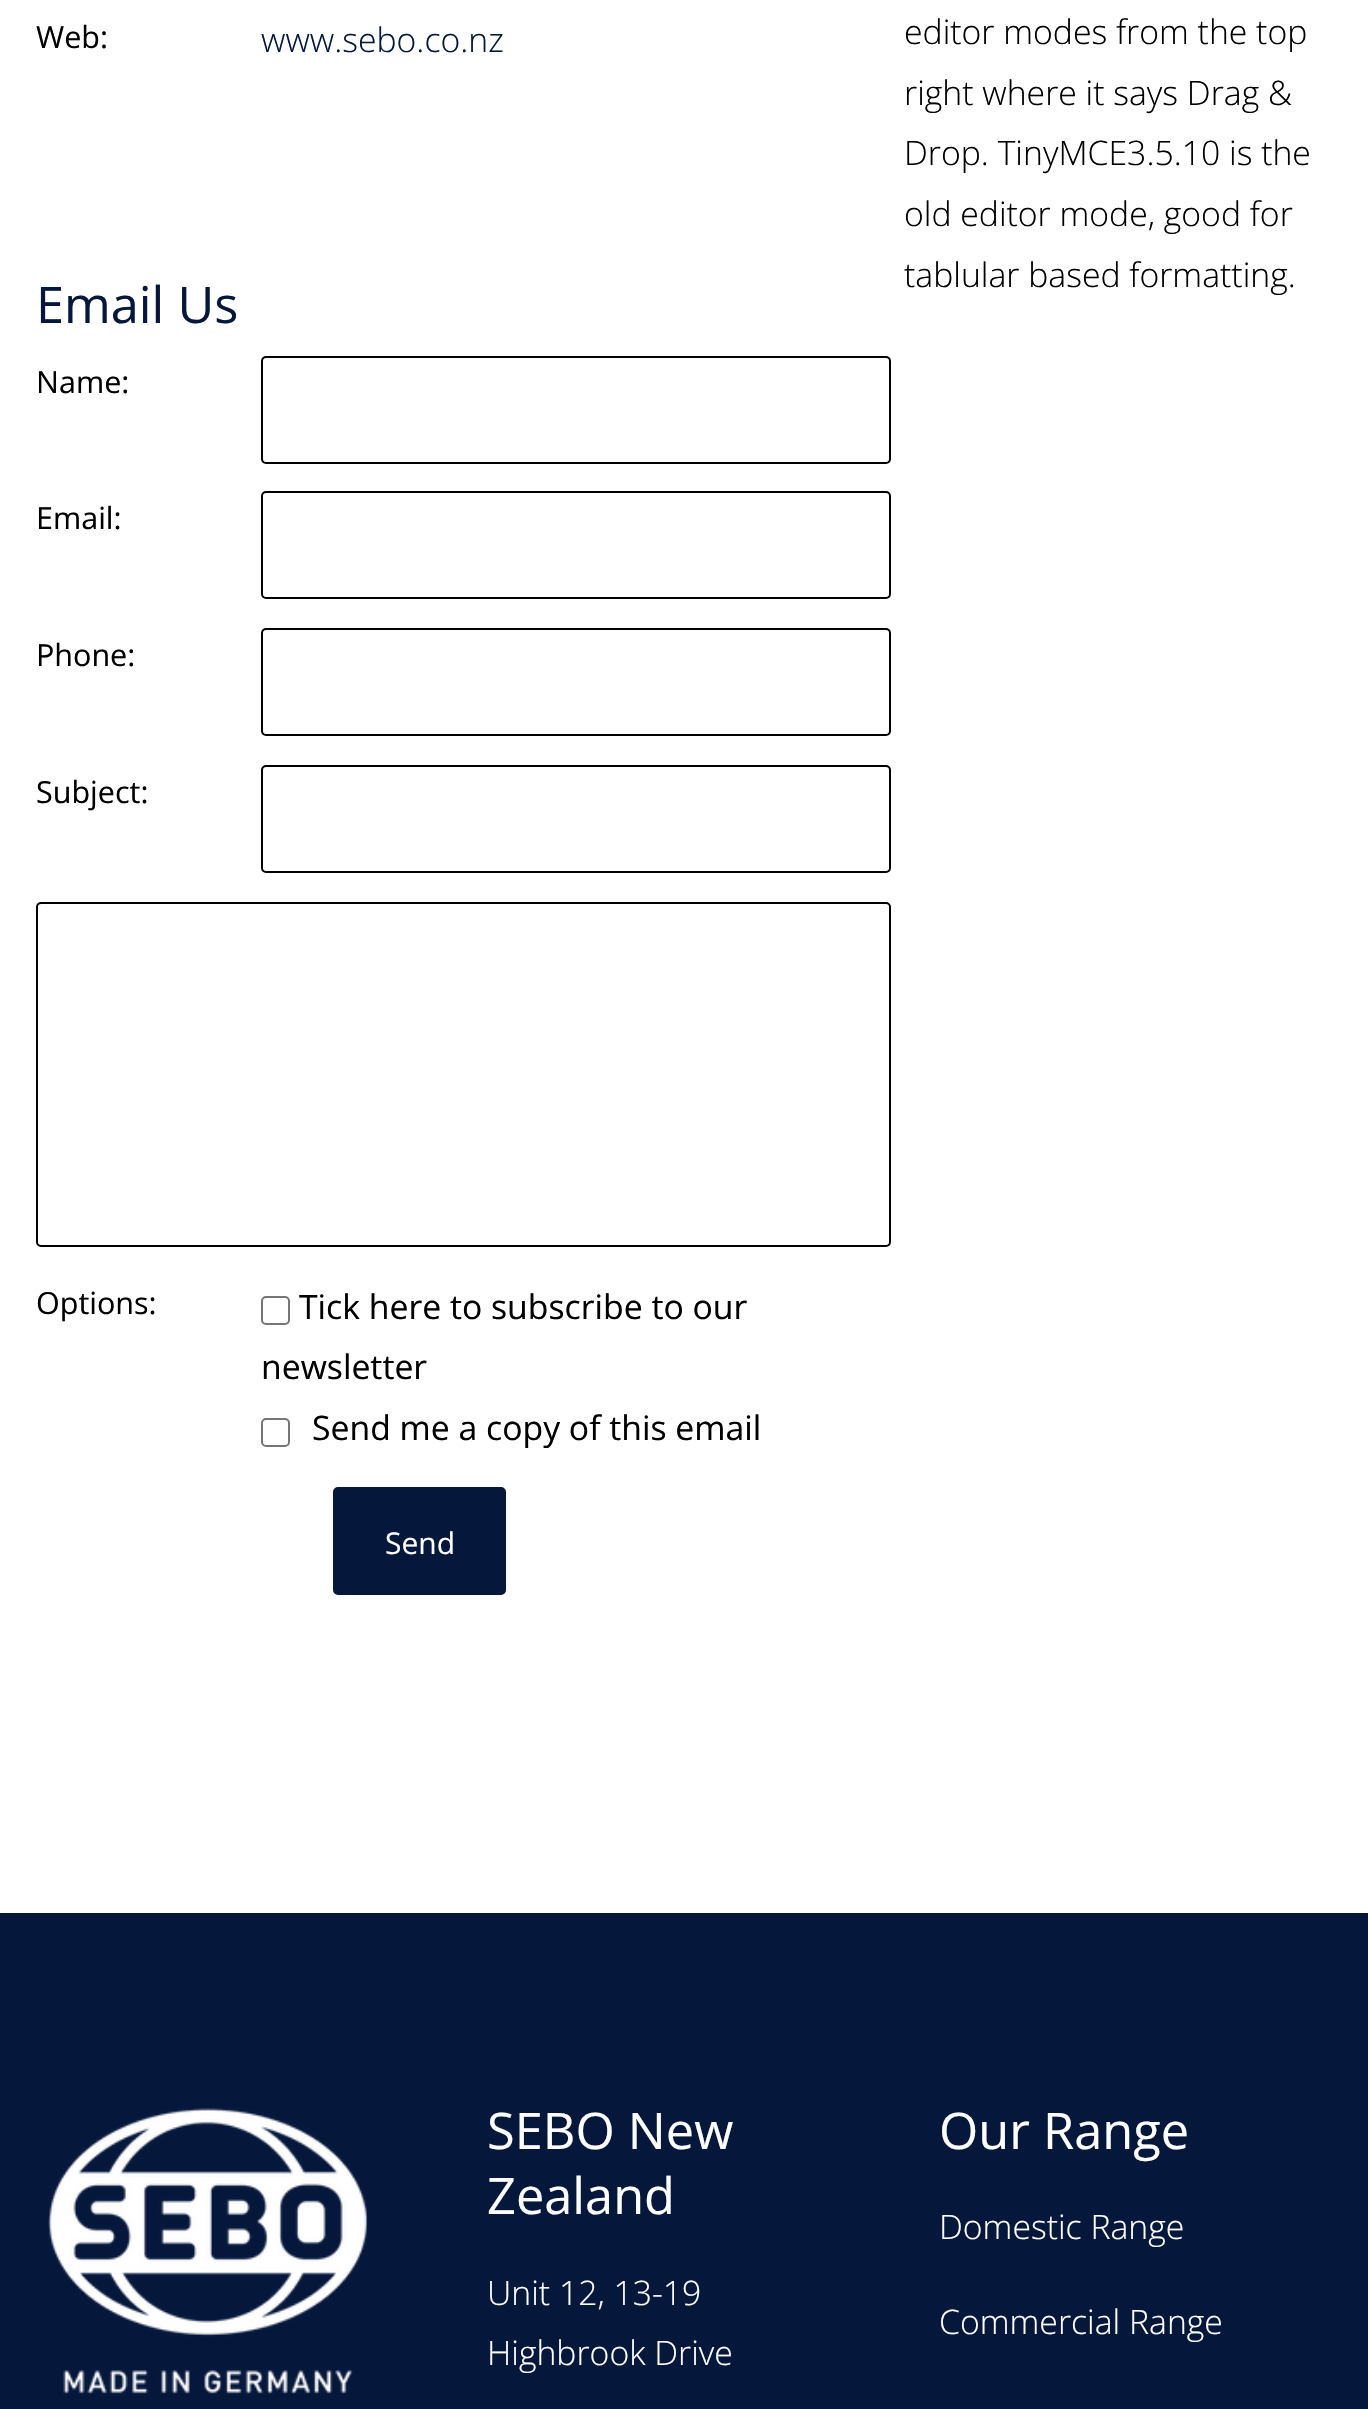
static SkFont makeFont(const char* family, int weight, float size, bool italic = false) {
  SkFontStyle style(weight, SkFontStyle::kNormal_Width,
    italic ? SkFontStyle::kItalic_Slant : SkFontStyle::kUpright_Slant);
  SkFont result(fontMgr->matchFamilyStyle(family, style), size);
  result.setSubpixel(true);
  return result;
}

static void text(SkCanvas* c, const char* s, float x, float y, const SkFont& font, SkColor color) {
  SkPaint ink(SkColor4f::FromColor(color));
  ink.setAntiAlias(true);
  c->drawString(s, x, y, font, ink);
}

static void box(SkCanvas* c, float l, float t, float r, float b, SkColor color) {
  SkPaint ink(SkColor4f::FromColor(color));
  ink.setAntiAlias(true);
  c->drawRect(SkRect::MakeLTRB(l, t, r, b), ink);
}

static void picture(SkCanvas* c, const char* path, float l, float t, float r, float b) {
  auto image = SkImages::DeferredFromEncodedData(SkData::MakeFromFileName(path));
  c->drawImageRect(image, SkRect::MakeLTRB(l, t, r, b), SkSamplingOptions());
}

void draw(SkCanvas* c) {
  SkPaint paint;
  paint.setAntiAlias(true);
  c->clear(0xffffffff);
  SkFont face1 = makeFont("Open Sans", 400, 30.5f);
  text(c, "Web:", 36, 48, face1, 0xff000000);
  SkFont face2 = makeFont("Open Sans", 300, 33.75f);
  text(c, "www.sebo.co.nz", 261, 52, face2, 0xff05173b);
  SkFont face3 = makeFont("Open Sans", 400, 50.5f);
  text(c, "Email Us", 36, 323, face3, 0xff05173b);
  text(c, "Name:", 36, 393, face1, 0xff000000);
  paint.setStyle(SkPaint::kStroke_Style);
  paint.setStrokeWidth(2);
  paint.setColor(0xff000000);
  c->drawRoundRect(SkRect::MakeLTRB(262, 357, 890, 463), 4, 4, paint);
  text(c, "Email:", 36, 529, face1, 0xff000000);
  c->drawRoundRect(SkRect::MakeLTRB(262, 492, 890, 598), 4, 4, paint);
  text(c, "Phone:", 36, 666, face1, 0xff000000);
  c->drawRoundRect(SkRect::MakeLTRB(262, 629, 890, 735), 4, 4, paint);
  text(c, "Subject:", 36, 803, face1, 0xff000000);
  c->drawRoundRect(SkRect::MakeLTRB(262, 766, 890, 872), 4, 4, paint);
  c->drawRoundRect(SkRect::MakeLTRB(37, 903, 890, 1246), 4, 4, paint);
  text(c, "Options:", 36, 1314, face1, 0xff000000);
  paint.setColor(0xff767676);
  c->drawRoundRect(SkRect::MakeLTRB(262, 1297, 289, 1324), 4, 4, paint);
  SkFont face4 = makeFont("Open Sans", 400, 33.75f);
  text(c, "Tick here to subscribe to our", 299, 1319, face4, 0xff000000);
  text(c, "newsletter", 261, 1379, face4, 0xff000000);
  c->drawRoundRect(SkRect::MakeLTRB(262, 1419, 289, 1446), 4, 4, paint);
  text(c, "Send me a copy of this email", 312, 1440, face4, 0xff000000);
  paint.setStyle(SkPaint::kFill_Style);
  paint.setColor(0xff05173b);
  c->drawRoundRect(SkRect::MakeLTRB(334, 1488, 505, 1594), 4, 4, paint);
  paint.setStyle(SkPaint::kStroke_Style);
  c->drawRoundRect(SkRect::MakeLTRB(334, 1488, 505, 1594), 4, 4, paint);
  SkFont face5 = makeFont("Open Sans", 400, 30);
  text(c, "Send", 385, 1554, face5, 0xffffffff);
  text(c, "editor modes from the top", 904, 44, face2, 0xff000000);
  text(c, "right where it says Drag &", 904, 105, face2, 0xff000000);
  text(c, "Drop. TinyMCE3.5.10 is the", 904, 165, face2, 0xff000000);
  text(c, "old editor mode, good for", 904, 226, face2, 0xff000000);
  text(c, "tablular based formatting.", 904, 287, face2, 0xff000000);
  box(c, 0, 1913, 1368, 2409, 0xff05173b);
  picture(c, "img_01.png", 48, 2108, 368, 2394);
  text(c, "SEBO New", 487, 2149, face3, 0xffffffff);
  text(c, "Zealand", 487, 2214, face3, 0xffffffff);
  text(c, "Unit 12, 13-19", 487, 2305, face2, 0xffffffff);
  text(c, "Highbrook Drive", 487, 2365, face2, 0xffffffff);
  text(c, "Our Range", 939, 2149, face3, 0xffffffff);
  text(c, "Domestic Range", 939, 2239, face2, 0xffffffff);
  text(c, "Commercial Range", 939, 2334, face2, 0xffffffff);
}
